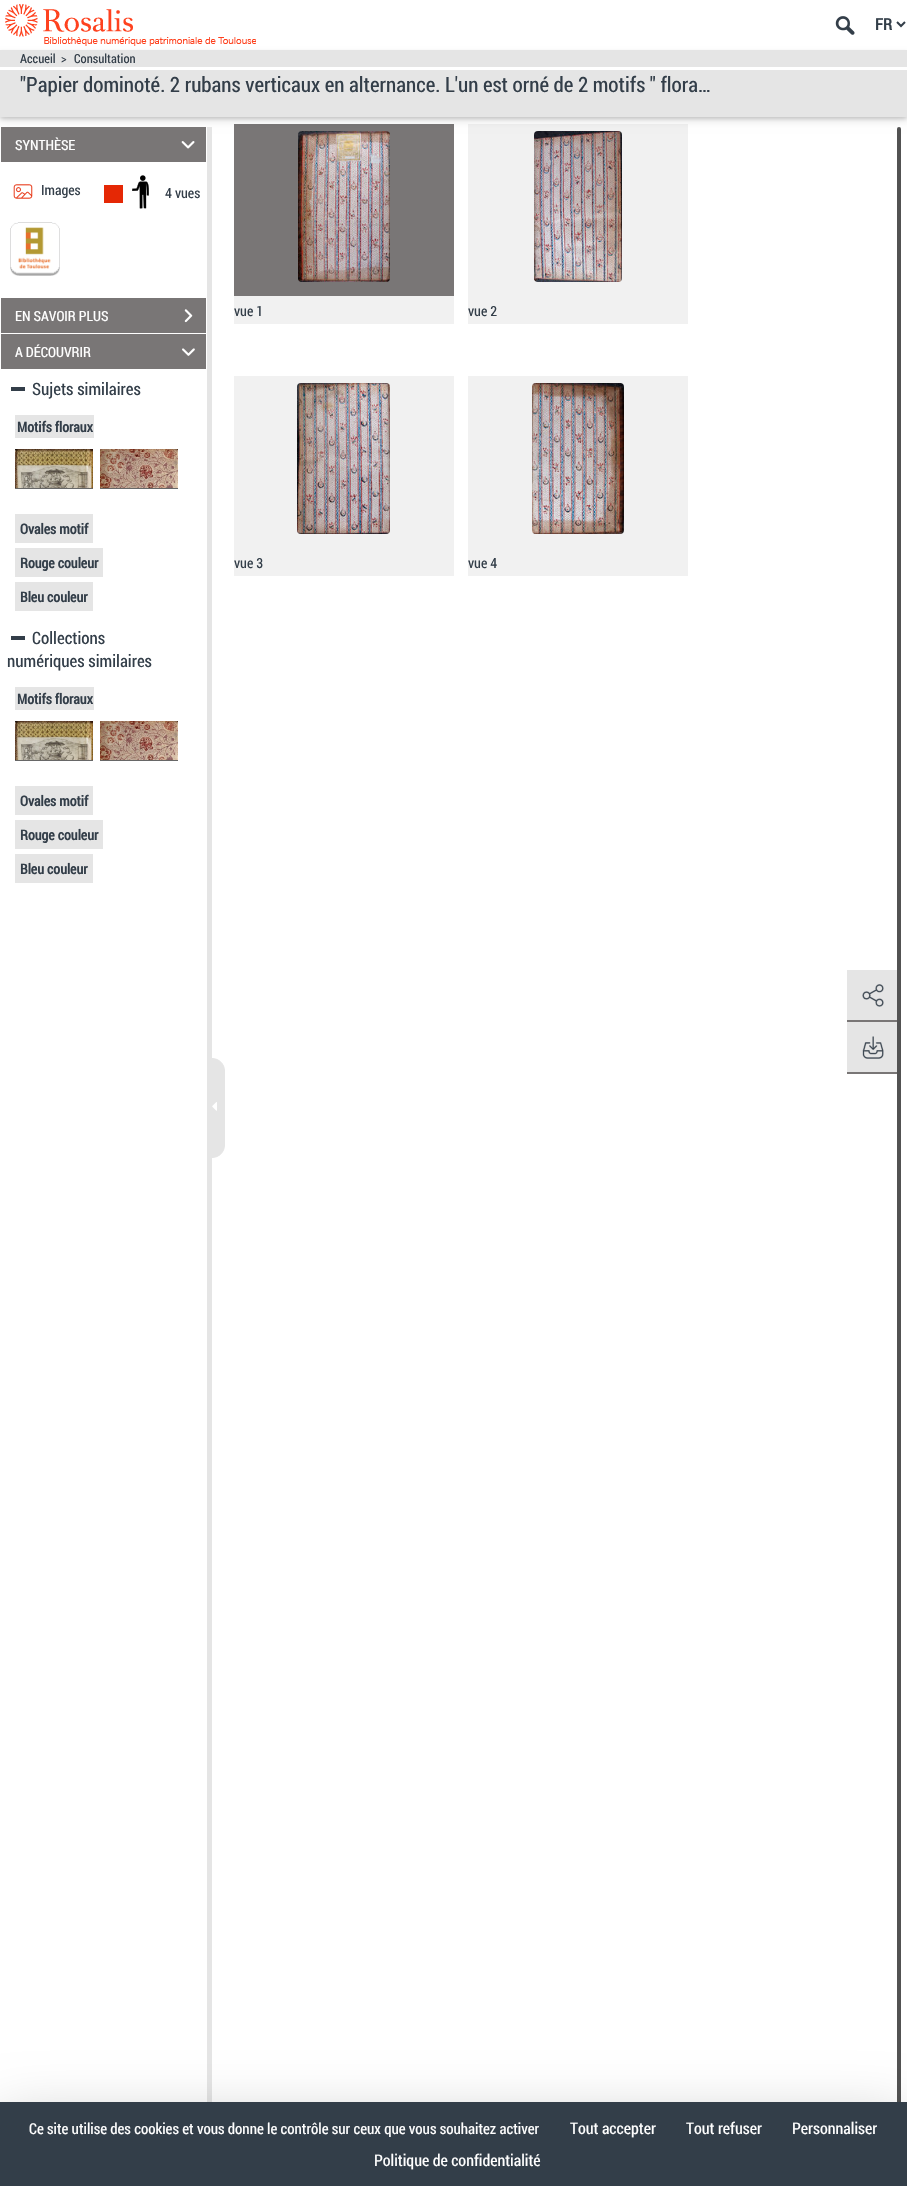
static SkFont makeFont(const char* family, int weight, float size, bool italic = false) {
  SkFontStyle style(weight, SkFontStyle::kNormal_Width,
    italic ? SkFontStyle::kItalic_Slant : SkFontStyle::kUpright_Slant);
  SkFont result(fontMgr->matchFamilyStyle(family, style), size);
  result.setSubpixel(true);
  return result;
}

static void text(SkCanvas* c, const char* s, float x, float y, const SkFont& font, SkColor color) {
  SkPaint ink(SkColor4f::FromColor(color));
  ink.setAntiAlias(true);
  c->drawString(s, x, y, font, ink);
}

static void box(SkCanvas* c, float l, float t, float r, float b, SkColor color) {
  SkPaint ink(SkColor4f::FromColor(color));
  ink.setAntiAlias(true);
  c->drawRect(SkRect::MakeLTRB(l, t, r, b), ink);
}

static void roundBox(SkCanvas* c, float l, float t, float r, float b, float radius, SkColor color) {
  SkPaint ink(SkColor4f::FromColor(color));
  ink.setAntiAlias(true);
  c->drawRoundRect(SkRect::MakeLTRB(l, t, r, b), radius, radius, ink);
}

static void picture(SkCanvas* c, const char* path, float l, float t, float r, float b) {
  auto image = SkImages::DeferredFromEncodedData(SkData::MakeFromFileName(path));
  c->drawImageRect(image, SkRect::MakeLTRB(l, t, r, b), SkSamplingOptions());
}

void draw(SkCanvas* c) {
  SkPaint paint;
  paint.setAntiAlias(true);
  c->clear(0xffffffff);
  box(c, 234, 124, 454, 296, 0xff797676);
  picture(c, "img_12.png", 298, 131, 390, 282);
  box(c, 468, 124, 688, 324, 0xfff1f1f1);
  picture(c, "img_13.png", 534, 131, 622, 282);
  roundBox(c, 897, 127, 901, 2166, 2, 0xff525252);
  c->save();
  c->clipRect(SkRect::MakeLTRB(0, 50, 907, 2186));
  paint.setColor(0x1f000000);
  paint.setMaskFilter(SkMaskFilter::MakeBlur(kNormal_SkBlurStyle, 5));
  c->drawRect(SkRect::MakeLTRB(0, 52, 907, 119), paint);
  paint.setMaskFilter(nullptr);
  c->restore();
  paint.setColor(0x29000000);
  paint.setMaskFilter(SkMaskFilter::MakeBlur(kNormal_SkBlurStyle, 2));
  c->drawRect(SkRect::MakeLTRB(0, 52, 907, 119), paint);
  paint.setMaskFilter(nullptr);
  picture(c, "img_01.png", 5, 4, 256, 46);
  picture(c, "img_02.png", 835, 16, 855, 35);
  paint.setStyle(SkPaint::kStroke_Style);
  paint.setStrokeWidth(2);
  paint.setColor(0xff333e49);
  c->drawPath(SkPathBuilder().moveTo(897, 22).lineTo(901, 26).lineTo(905, 22).detach(), paint);
  SkFont face1 = makeFont("Roboto Condensed", 700, 16);
  text(c, "FR", 875, 30, face1, 0xff333e49);
  box(c, 0, 50, 907, 117, 0xffe5e5e5);
  box(c, 0, 67, 907, 70, 0xffffffff);
  SkFont face2 = makeFont("Roboto Condensed", 400, 12.5f);
  text(c, "Accueil", 20, 63, face2, 0xff333e49);
  text(c, ">", 61, 63, face2, 0xff333e49);
  text(c, "Consultation", 74, 63, face2, 0xff333e49);
  SkFont face3 = makeFont("Roboto Condensed", 400, 21);
  text(c, "\"Papier dominoté. 2 rubans verticaux en alternance. L'un est orné de 2 motifs \" flora…", 20, 92, face3, 0xff333e49);
  box(c, 207, 127, 212, 2102, 0xffe5e5e5);
  box(c, 1, 127, 206, 162, 0xff797676);
  SkFont face4 = makeFont("Roboto Condensed", 400, 14);
  text(c, "SYNTHÈSE", 15, 150, face4, 0xffffffff);
  picture(c, "img_03.png", 181, 141, 195, 149);
  picture(c, "img_04.png", 13, 184, 33, 199);
  text(c, "Images", 41, 195, face4, 0xff333e49);
  box(c, 104, 185, 123, 203, 0xffe52805);
  picture(c, "img_05.png", 132, 175, 149, 209);
  text(c, "4 vues", 165, 198, face4, 0xff333e49);
  picture(c, "img_06.png", 10, 222, 60, 276);
  box(c, 1, 298, 206, 333, 0xff797676);
  text(c, "EN SAVOIR PLUS", 15, 321, face4, 0xffffffff);
  picture(c, "img_07.png", 184, 309, 193, 323);
  box(c, 1, 334, 206, 369, 0xff797676);
  text(c, "A DÉCOUVRIR", 15, 357, face4, 0xffffffff);
  picture(c, "img_08.png", 182, 348, 195, 356);
  SkFont face5 = makeFont("Roboto Condensed", 400, 17);
  text(c, "Sujets similaires", 32, 395, face5, 0xff333e49);
  box(c, 11, 387, 25, 391, 0xff333e49);
  box(c, 15, 415, 94, 438, 0xffe5e5e5);
  SkFont face6 = makeFont("Roboto Condensed", 700, 14);
  text(c, "Motifs floraux", 17, 432, face6, 0xff333e49);
  picture(c, "img_09.png", 15, 449, 93, 488);
  box(c, 15, 488, 93, 489, 0xff676767);
  picture(c, "img_10.png", 100, 449, 178, 488);
  box(c, 100, 488, 178, 489, 0xff676767);
  box(c, 15, 514, 93, 543, 0xffe5e5e5);
  text(c, "Ovales motif", 20, 534, face6, 0xff333e49);
  box(c, 15, 548, 103, 577, 0xffe5e5e5);
  text(c, "Rouge couleur", 20, 568, face6, 0xff333e49);
  box(c, 15, 582, 93, 611, 0xffe5e5e5);
  text(c, "Bleu couleur", 20, 602, face6, 0xff333e49);
  text(c, "Collections", 32, 644, face5, 0xff333e49);
  box(c, 11, 636, 25, 640, 0xff333e49);
  text(c, "numériques similaires", 7, 667, face5, 0xff333e49);
  box(c, 15, 687, 94, 710, 0xffe5e5e5);
  text(c, "Motifs floraux", 17, 704, face6, 0xff333e49);
  picture(c, "img_09.png", 15, 721, 93, 760);
  box(c, 15, 760, 93, 761, 0xff676767);
  picture(c, "img_10.png", 100, 721, 178, 760);
  box(c, 100, 760, 178, 761, 0xff676767);
  box(c, 15, 786, 93, 815, 0xffe5e5e5);
  text(c, "Ovales motif", 20, 806, face6, 0xff333e49);
  box(c, 15, 820, 103, 849, 0xffe5e5e5);
  text(c, "Rouge couleur", 20, 840, face6, 0xff333e49);
  box(c, 15, 854, 93, 883, 0xffe5e5e5);
  text(c, "Bleu couleur", 20, 874, face6, 0xff333e49);
  paint.setStyle(SkPaint::kFill_Style);
  paint.setColor(0xffe5e5e5);
  c->drawPath(SkPathBuilder().moveTo(212.5f, 1058.5f).lineTo(212, 1058.5f).cubicTo(219, 1058.5f, 224.5f, 1064, 224.5f, 1071).lineTo(224.5f, 1145).cubicTo(224.5f, 1152, 219, 1157.5f, 212, 1157.5f).lineTo(212.5f, 1157.5f).close().detach(), paint);
  paint.setStyle(SkPaint::kStroke_Style);
  paint.setStrokeWidth(1);
  c->drawPath(SkPathBuilder().moveTo(212.5f, 1058.5f).lineTo(212, 1058.5f).cubicTo(219, 1058.5f, 224.5f, 1064, 224.5f, 1071).lineTo(224.5f, 1145).cubicTo(224.5f, 1152, 219, 1157.5f, 212, 1157.5f).lineTo(212.5f, 1157.5f).close().detach(), paint);
  picture(c, "img_11.png", 212, 1102, 217, 1111);
  box(c, 234, 296, 454, 324, 0xfff1f1f1);
  text(c, "vue 1", 234, 316, face4, 0xff333e49);
  text(c, "vue 2", 468, 316, face4, 0xff333e49);
  box(c, 234, 376, 454, 576, 0xfff1f1f1);
  picture(c, "img_14.png", 297, 383, 390, 534);
  text(c, "vue 3", 234, 568, face4, 0xff333e49);
  box(c, 468, 376, 688, 576, 0xfff1f1f1);
  picture(c, "img_15.png", 532, 383, 624, 534);
  text(c, "vue 4", 468, 568, face4, 0xff333e49);
  box(c, 847, 970, 897, 1020, 0xffe5e5e5);
  picture(c, "img_16.png", 862, 984, 884, 1007);
  box(c, 847, 1020, 897, 1022, 0xff797676);
  box(c, 847, 1022, 897, 1072, 0xffe5e5e5);
  picture(c, "img_17.png", 862, 1036, 884, 1059);
  box(c, 847, 1072, 897, 1074, 0xff797676);
  paint.setStyle(SkPaint::kFill_Style);
  paint.setColor(0x40000000);
  paint.setMaskFilter(SkMaskFilter::MakeBlur(kNormal_SkBlurStyle, 30));
  c->drawRect(SkRect::MakeLTRB(0, 2122, 907, 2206), paint);
  paint.setMaskFilter(nullptr);
  box(c, 0, 2102, 907, 2186, 0xff333e49);
  SkFont face7 = makeFont("Roboto Condensed", 400, 15);
  text(c, "Ce site utilise des cookies et vous donne le contrôle sur ceux que vous souhaitez activer", 29, 2134, face7, 0xffffffff);
  SkFont face8 = makeFont("Roboto Condensed", 400, 16);
  text(c, "Tout accepter", 570, 2134, face8, 0xffffffff);
  text(c, "Tout refuser", 686, 2134, face8, 0xffffffff);
  text(c, "Personnaliser", 792, 2134, face8, 0xffffffff);
  text(c, "Politique de confidentialité", 374, 2166, face8, 0xffffffff);
}
